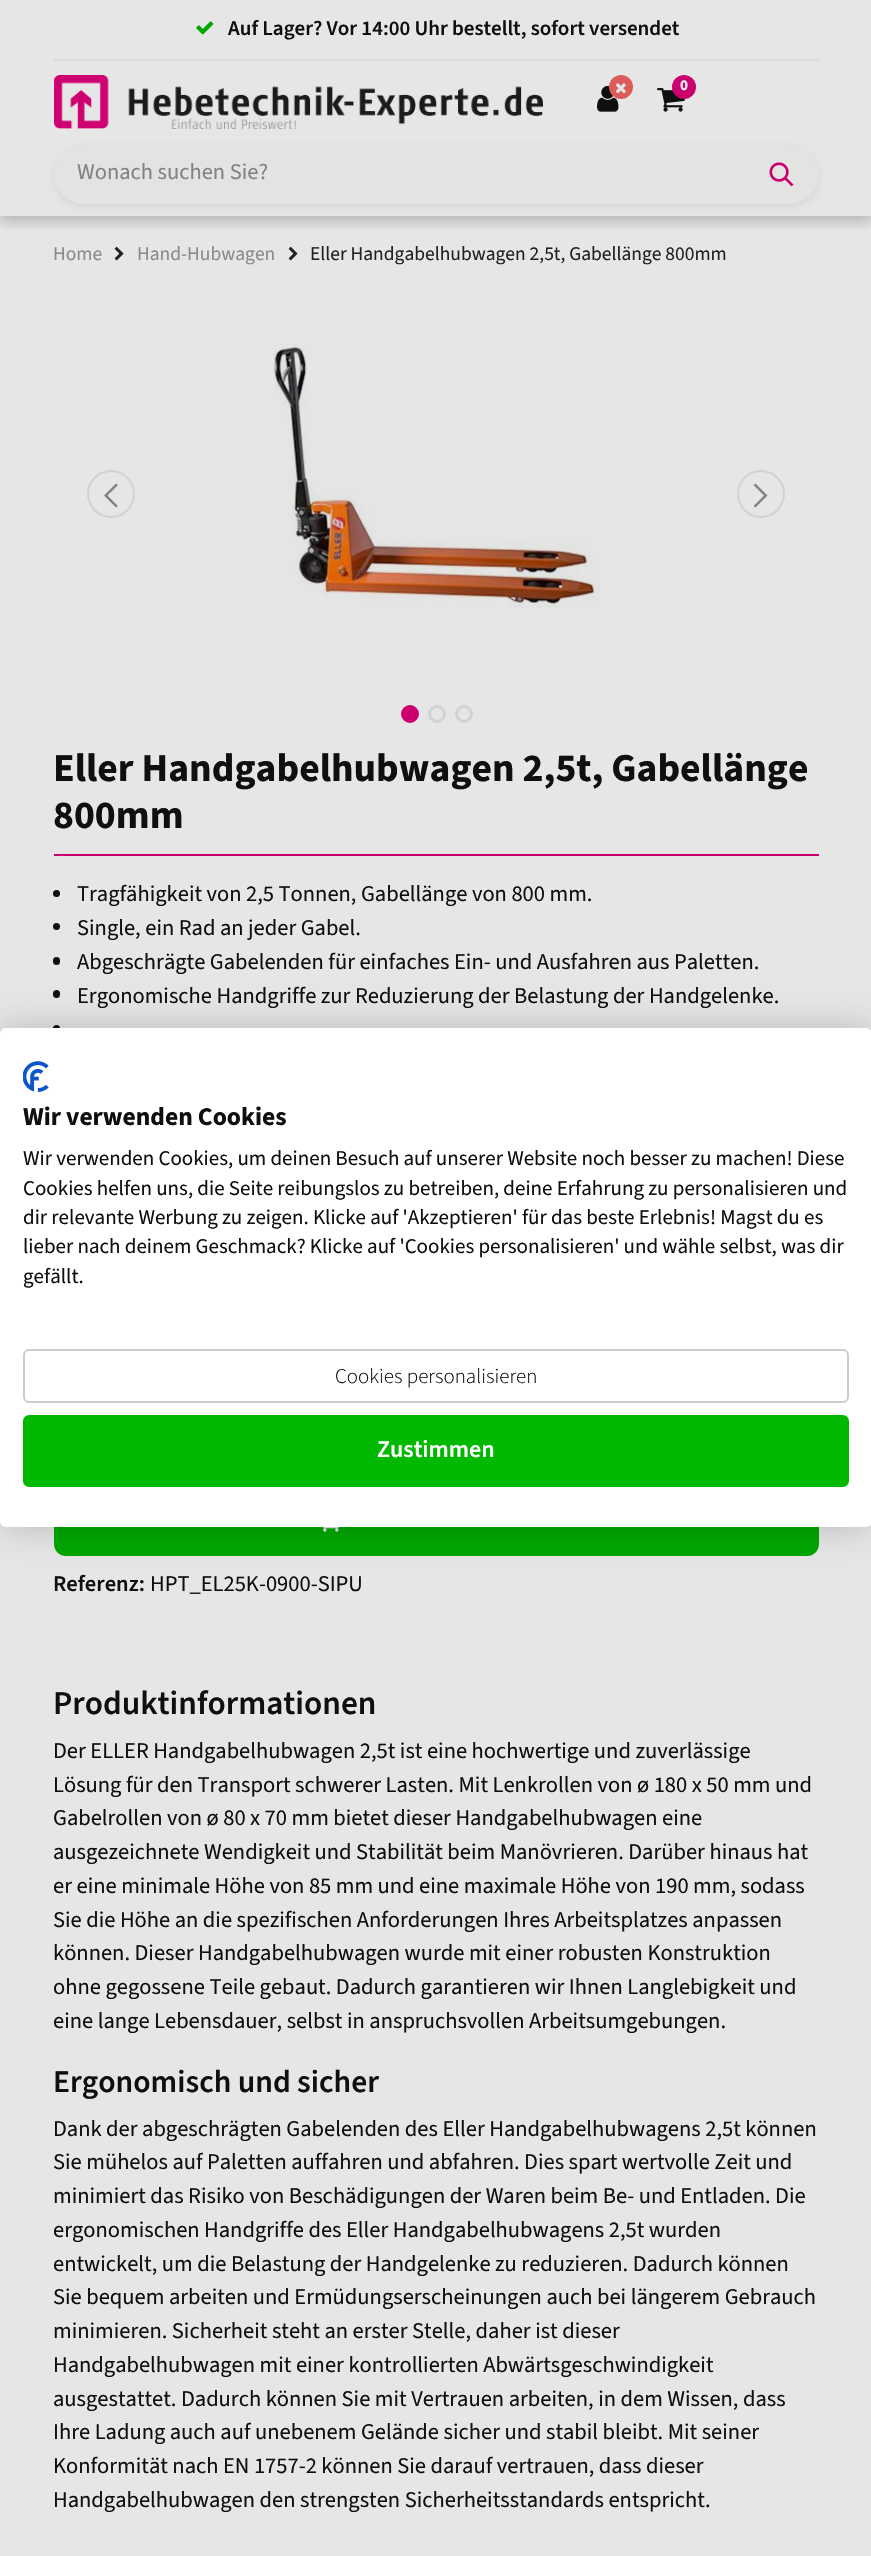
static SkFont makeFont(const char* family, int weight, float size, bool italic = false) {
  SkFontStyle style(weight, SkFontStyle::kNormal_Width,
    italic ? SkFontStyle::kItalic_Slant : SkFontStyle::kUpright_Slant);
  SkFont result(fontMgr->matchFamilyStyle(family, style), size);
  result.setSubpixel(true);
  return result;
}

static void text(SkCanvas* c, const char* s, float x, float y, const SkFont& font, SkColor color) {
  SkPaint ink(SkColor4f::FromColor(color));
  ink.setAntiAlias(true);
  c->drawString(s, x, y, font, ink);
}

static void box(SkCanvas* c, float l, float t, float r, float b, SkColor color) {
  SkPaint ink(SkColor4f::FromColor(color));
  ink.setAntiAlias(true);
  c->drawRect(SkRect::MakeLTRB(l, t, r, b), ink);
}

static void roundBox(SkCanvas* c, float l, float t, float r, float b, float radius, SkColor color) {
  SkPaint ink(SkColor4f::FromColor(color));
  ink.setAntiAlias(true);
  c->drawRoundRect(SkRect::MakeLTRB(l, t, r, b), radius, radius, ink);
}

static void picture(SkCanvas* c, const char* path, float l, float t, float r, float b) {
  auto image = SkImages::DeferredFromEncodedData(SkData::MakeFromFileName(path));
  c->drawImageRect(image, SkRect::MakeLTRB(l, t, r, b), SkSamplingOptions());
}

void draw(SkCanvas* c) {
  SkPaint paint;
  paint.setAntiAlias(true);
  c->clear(0xffe6e6e6);
  c->save();
  c->clipRect(SkRect::MakeLTRB(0, 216, 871, 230));
  paint.setColor(0x33000000);
  paint.setMaskFilter(SkMaskFilter::MakeBlur(kNormal_SkBlurStyle, 6));
  c->drawRect(SkRect::MakeLTRB(0, 6, 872, 222), paint);
  paint.setMaskFilter(nullptr);
  c->restore();
  box(c, 54, 59, 819, 61, 0xffdddbd7);
  picture(c, "img_01.png", 196, 21, 214, 35);
  SkFont face1 = makeFont("Source Sans 3", 600, 21);
  text(c, "Auf Lager? Vor 14:00 Uhr bestellt, sofort versendet", 228, 35, face1, 0xff0f0f0f);
  picture(c, "img_02.png", 54, 75, 543, 129);
  picture(c, "img_03.png", 597, 85, 619, 112);
  paint.setColor(0xffdd5b5b);
  c->drawCircle(621, 87, 12, paint);
  picture(c, "img_04.png", 616, 83, 626, 94);
  picture(c, "img_05.png", 657, 88, 685, 112);
  paint.setColor(0xffcb006e);
  c->drawCircle(684, 87, 12, paint);
  SkFont face2 = makeFont("Source Sans 3", 800, 15);
  text(c, "0", 680, 90, face2, 0xffe6e6e6);
  paint.setColor(0x12000000);
  paint.setMaskFilter(SkMaskFilter::MakeBlur(kNormal_SkBlurStyle, 3));
  c->drawRoundRect(SkRect::MakeLTRB(54, 147, 819, 207), 30, 30, paint);
  paint.setMaskFilter(nullptr);
  roundBox(c, 54, 144, 819, 204, 30, 0xffe3e3e2);
  SkFont face3 = makeFont("Source Sans 3", 400, 22.5f);
  text(c, "Wonach suchen Sie?", 77, 179, face3, 0xff818383);
  picture(c, "img_06.png", 769, 162, 794, 187);
  SkFont face4 = makeFont("Source Sans 3", 400, 19.5f);
  text(c, "Home", 53, 260, face4, 0xff8a8a8a);
  picture(c, "img_07.png", 114, 246, 124, 261);
  text(c, "Hand-Hubwagen", 137, 260, face4, 0xff8a8a8a);
  picture(c, "img_07.png", 288, 246, 298, 261);
  text(c, "Eller Handgabelhubwagen 2,5t, Gabellänge 800mm", 310, 260, face4, 0xff1e2125);
  paint.setStyle(SkPaint::kStroke_Style);
  paint.setStrokeWidth(2);
  paint.setColor(0xffd0d3d5);
  c->drawCircle(111, 494, 23, paint);
  paint.setStyle(SkPaint::kFill_Style);
  paint.setColor(0xff828385);
  c->drawPath(SkPathBuilder().moveTo(104, 495.5f).lineTo(116, 483.5f).lineTo(118, 485).lineTo(107.5f, 495.5f).lineTo(118, 506).lineTo(116, 507.5f).close().detach(), paint);
  picture(c, "img_08.png", 273, 344, 600, 608);
  paint.setStyle(SkPaint::kStroke_Style);
  paint.setColor(0xffd0d3d5);
  c->drawCircle(761, 494, 23, paint);
  paint.setStyle(SkPaint::kFill_Style);
  paint.setColor(0xff828385);
  c->drawPath(SkPathBuilder().moveTo(767.5f, 495.5f).lineTo(755.5f, 507.5f).lineTo(753.5f, 506).lineTo(764, 495.5f).lineTo(753.5f, 485).lineTo(755.5f, 483.5f).close().detach(), paint);
  paint.setColor(0xffcb006e);
  c->drawCircle(410, 714, 7.5f, paint);
  paint.setStyle(SkPaint::kStroke_Style);
  paint.setStrokeWidth(3);
  c->drawCircle(410, 714, 7.5f, paint);
  paint.setColor(0xffd0d3d5);
  c->drawCircle(437, 714, 7.5f, paint);
  c->drawCircle(464, 714, 7.5f, paint);
  box(c, 54, 854, 819, 856, 0xffcb006e);
  SkFont face5 = makeFont("Source Sans 3", 700, 39.6f);
  text(c, "Eller Handgabelhubwagen 2,5t, Gabellänge", 53, 781, face5, 0xff0f0f0f);
  text(c, "800mm", 53, 828, face5, 0xff0f0f0f);
  paint.setStyle(SkPaint::kFill_Style);
  paint.setColor(0xff0f0f0f);
  c->drawCircle(56.5f, 893.5f, 3.5f, paint);
  text(c, "Tragfähigkeit von 2,5 Tonnen, Gabellänge von 800 mm.", 77, 901, face3, 0xff0f0f0f);
  c->drawCircle(56.5f, 926.5f, 3.5f, paint);
  text(c, "Single, ein Rad an jeder Gabel.", 77, 935, face3, 0xff0f0f0f);
  roundBox(c, 53, 957, 60, 965, 3.5f, 0xff0f0f0f);
  text(c, "Abgeschrägte Gabelenden für einfaches Ein- und Ausfahren aus Paletten.", 77, 969, face3, 0xff0f0f0f);
  roundBox(c, 53, 990, 60, 998, 3.5f, 0xff0f0f0f);
  text(c, "Ergonomische Handgriffe zur Reduzierung der Belastung der Handgelenke.", 77, 1003, face3, 0xff0f0f0f);
  c->drawCircle(56.5f, 1028.5f, 3.5f, paint);
  roundBox(c, 54, 1490, 819, 1556, 12, 0xff00a700);
  picture(c, "img_09.png", 323, 1527, 339, 1532);
  SkFont face6 = makeFont("Source Sans 3", 600, 22.5f);
  text(c, "Referenz:", 53, 1591, face6, 0xff0f0f0f);
  text(c, "HPT_EL25K-0900-SIPU", 150, 1591, face3, 0xff0f0f0f);
  SkFont face7 = makeFont("Source Sans 3", 600, 33.25f);
  text(c, "Produktinformationen", 53, 1714, face7, 0xff0f0f0f);
  text(c, "Der ELLER Handgabelhubwagen 2,5t ist eine hochwertige und zuverlässige", 53, 1758, face3, 0xff0f0f0f);
  text(c, "Lösung für den Transport schwerer Lasten. Mit Lenkrollen von ø 180 x 50 mm und", 53, 1792, face3, 0xff0f0f0f);
  text(c, "Gabelrollen von ø 80 x 70 mm bietet dieser Handgabelhubwagen eine", 53, 1825, face3, 0xff0f0f0f);
  text(c, "ausgezeichnete Wendigkeit und Stabilität beim Manövrieren. Darüber hinaus hat", 53, 1859, face3, 0xff0f0f0f);
  text(c, "er eine minimale Höhe von 85 mm und eine maximale Höhe von 190 mm, sodass", 53, 1893, face3, 0xff0f0f0f);
  text(c, "Sie die Höhe an die spezifischen Anforderungen Ihres Arbeitsplatzes anpassen", 53, 1927, face3, 0xff0f0f0f);
  text(c, "können. Dieser Handgabelhubwagen wurde mit einer robusten Konstruktion", 53, 1960, face3, 0xff0f0f0f);
  text(c, "ohne gegossene Teile gebaut. Dadurch garantieren wir Ihnen Langlebigkeit und", 53, 1994, face3, 0xff0f0f0f);
  text(c, "eine lange Lebensdauer, selbst in anspruchsvollen Arbeitsumgebungen.", 53, 2028, face3, 0xff0f0f0f);
  SkFont face8 = makeFont("Source Sans 3", 600, 31.6f);
  text(c, "Ergonomisch und sicher", 53, 2092, face8, 0xff0f0f0f);
  text(c, "Dank der abgeschrägten Gabelenden des Eller Handgabelhubwagens 2,5t können", 53, 2136, face3, 0xff0f0f0f);
  text(c, "Sie mühelos auf Paletten auffahren und abfahren. Dies spart wertvolle Zeit und", 53, 2169, face3, 0xff0f0f0f);
  text(c, "minimiert das Risiko von Beschädigungen der Waren beim Be- und Entladen. Die", 53, 2203, face3, 0xff0f0f0f);
  text(c, "ergonomischen Handgriffe des Eller Handgabelhubwagens 2,5t wurden", 53, 2237, face3, 0xff0f0f0f);
  text(c, "entwickelt, um die Belastung der Handgelenke zu reduzieren. Dadurch können", 53, 2271, face3, 0xff0f0f0f);
  text(c, "Sie bequem arbeiten und Ermüdungserscheinungen auch bei längerem Gebrauch", 53, 2304, face3, 0xff0f0f0f);
  text(c, "minimieren. Sicherheit steht an erster Stelle, daher ist dieser", 53, 2338, face3, 0xff0f0f0f);
  text(c, "Handgabelhubwagen mit einer kontrollierten Abwärtsgeschwindigkeit", 53, 2372, face3, 0xff0f0f0f);
  text(c, "ausgestattet. Dadurch können Sie mit Vertrauen arbeiten, in dem Wissen, dass", 53, 2406, face3, 0xff0f0f0f);
  text(c, "Ihre Ladung auch auf unebenem Gelände sicher und stabil bleibt. Mit seiner", 53, 2439, face3, 0xff0f0f0f);
  text(c, "Konformität nach EN 1757-2 können Sie darauf vertrauen, dass dieser", 53, 2473, face3, 0xff0f0f0f);
  text(c, "Handgabelhubwagen den strengsten Sicherheitsstandards entspricht.", 53, 2507, face3, 0xff0f0f0f);
  paint.setColor(0x33000000);
  paint.setMaskFilter(SkMaskFilter::MakeBlur(kNormal_SkBlurStyle, 18));
  c->drawRoundRect(SkRect::MakeLTRB(0, 1028, 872, 1527), 6, 6, paint);
  paint.setMaskFilter(nullptr);
  roundBox(c, 0, 1028, 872, 1527, 6, 0xffffffff);
  picture(c, "img_10.png", 23, 1061, 49, 1092);
  SkFont face9 = makeFont("Source Sans 3", 700, 25.5f);
  text(c, "Wir verwenden Cookies", 23, 1125, face9, 0xff0f0f0f);
  SkFont face10 = makeFont("Source Sans 3", 400, 21);
  text(c, "Wir verwenden Cookies, um deinen Besuch auf unserer Website noch besser zu machen! Diese", 23, 1165, face10, 0xff0f0f0f);
  text(c, "Cookies helfen uns, die Seite reibungslos zu betreiben, deine Erfahrung zu personalisieren und", 23, 1195, face10, 0xff0f0f0f);
  text(c, "dir relevante Werbung zu zeigen. Klicke auf 'Akzeptieren' für das beste Erlebnis! Magst du es", 23, 1224, face10, 0xff0f0f0f);
  text(c, "lieber nach deinem Geschmack? Klicke auf 'Cookies personalisieren' und wähle selbst, was dir", 23, 1253, face10, 0xff0f0f0f);
  text(c, "gefällt.", 23, 1283, face10, 0xff0f0f0f);
  paint.setStyle(SkPaint::kStroke_Style);
  paint.setStrokeWidth(2);
  paint.setColor(0xffcccccc);
  c->drawRoundRect(SkRect::MakeLTRB(24, 1350, 848, 1402), 5, 5, paint);
  SkFont face11 = makeFont("Source Sans 3", 300, 21);
  text(c, "Cookies personalisieren", 335, 1383, face11, 0xff0f0f0f);
  paint.setStyle(SkPaint::kFill_Style);
  paint.setColor(0xff00b900);
  c->drawRoundRect(SkRect::MakeLTRB(24, 1416, 848, 1486), 5, 5, paint);
  paint.setStyle(SkPaint::kStroke_Style);
  c->drawRoundRect(SkRect::MakeLTRB(24, 1416, 848, 1486), 5, 5, paint);
  SkFont face12 = makeFont("Source Sans 3", 600, 24);
  text(c, "Zustimmen", 377, 1457, face12, 0xffffffff);
}
